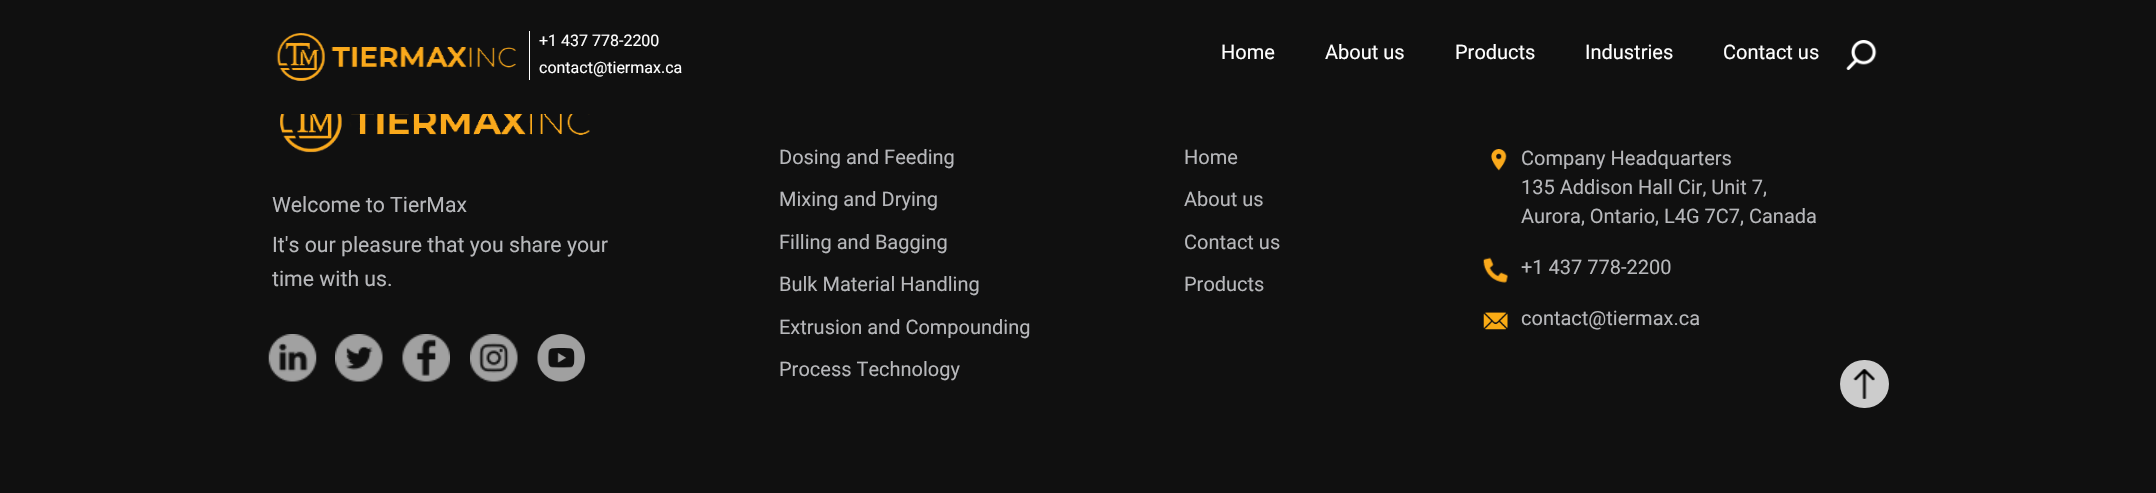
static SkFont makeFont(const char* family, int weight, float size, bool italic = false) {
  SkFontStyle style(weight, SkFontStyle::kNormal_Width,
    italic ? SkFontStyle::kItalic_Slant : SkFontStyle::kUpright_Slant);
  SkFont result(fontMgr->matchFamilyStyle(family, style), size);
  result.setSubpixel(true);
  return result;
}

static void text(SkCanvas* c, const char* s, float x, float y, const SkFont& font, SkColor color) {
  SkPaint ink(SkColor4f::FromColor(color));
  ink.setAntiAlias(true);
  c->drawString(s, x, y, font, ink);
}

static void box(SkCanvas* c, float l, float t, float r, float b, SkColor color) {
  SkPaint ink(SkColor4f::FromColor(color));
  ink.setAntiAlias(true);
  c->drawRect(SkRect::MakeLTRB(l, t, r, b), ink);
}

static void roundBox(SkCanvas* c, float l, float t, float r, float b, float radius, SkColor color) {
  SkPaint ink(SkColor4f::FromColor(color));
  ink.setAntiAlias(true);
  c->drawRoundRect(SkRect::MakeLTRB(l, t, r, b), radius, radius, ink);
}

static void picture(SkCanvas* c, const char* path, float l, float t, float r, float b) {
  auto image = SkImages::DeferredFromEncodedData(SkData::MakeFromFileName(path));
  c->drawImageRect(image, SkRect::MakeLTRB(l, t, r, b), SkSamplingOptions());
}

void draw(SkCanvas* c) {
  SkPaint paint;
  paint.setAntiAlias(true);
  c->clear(0xff101010);
  picture(c, "img_01.png", 276, 33, 516, 81);
  box(c, 529, 31, 530, 80, 0xffffffff);
  SkFont face1 = makeFont("Roboto", 400, 16);
  text(c, "+1 437 778-2200", 539, 46, face1, 0xffffffff);
  text(c, "contact@tiermax.ca", 539, 73, face1, 0xffffffff);
  SkFont face2 = makeFont("Roboto", 400, 20);
  text(c, "Home", 1221, 59, face2, 0xffffffff);
  text(c, "About us", 1325, 59, face2, 0xffffffff);
  text(c, "Products", 1455, 59, face2, 0xffffffff);
  text(c, "Industries", 1585, 59, face2, 0xffffffff);
  text(c, "Contact us", 1723, 59, face2, 0xffffffff);
  picture(c, "img_02.png", 1846, 40, 1877, 70);
  picture(c, "img_03.png", 280, 114, 590, 153);
  SkFont face3 = makeFont("Roboto", 400, 21.25f);
  text(c, "Welcome to TierMax", 272, 212, face3, 0xffb7b8bb);
  text(c, "It's our pleasure that you share your", 272, 252, face3, 0xffb7b8bb);
  text(c, "time with us.", 272, 286, face3, 0xffb7b8bb);
  picture(c, "img_04.png", 268, 334, 317, 382);
  picture(c, "img_05.png", 335, 334, 383, 382);
  picture(c, "img_06.png", 402, 334, 450, 382);
  picture(c, "img_07.png", 470, 334, 518, 382);
  picture(c, "img_08.png", 537, 334, 585, 382);
  text(c, "Dosing and Feeding", 779, 164, face2, 0xffb7b8bb);
  text(c, "Mixing and Drying", 779, 206, face2, 0xffb7b8bb);
  text(c, "Filling and Bagging", 779, 249, face2, 0xffb7b8bb);
  text(c, "Bulk Material Handling", 779, 291, face2, 0xffb7b8bb);
  text(c, "Extrusion and Compounding", 779, 334, face2, 0xffb7b8bb);
  text(c, "Process Technology", 779, 376, face2, 0xffb7b8bb);
  text(c, "Home", 1184, 164, face2, 0xffb7b8bb);
  text(c, "About us", 1184, 206, face2, 0xffb7b8bb);
  text(c, "Contact us", 1184, 249, face2, 0xffb7b8bb);
  text(c, "Products", 1184, 291, face2, 0xffb7b8bb);
  picture(c, "img_09.png", 1491, 149, 1507, 171);
  text(c, "Company Headquarters", 1521, 165, face2, 0xffb7b8bb);
  text(c, "135 Addison Hall Cir, Unit 7,", 1521, 194, face2, 0xffb7b8bb);
  text(c, "Aurora, Ontario, L4G 7C7, Canada", 1521, 223, face2, 0xffb7b8bb);
  picture(c, "img_10.png", 1483, 257, 1508, 283);
  text(c, "+1 437 778-2200", 1521, 274, face2, 0xffb7b8bb);
  picture(c, "img_11.png", 1483, 312, 1508, 330);
  text(c, "contact@tiermax.ca", 1521, 325, face2, 0xffb7b8bb);
  roundBox(c, 1840, 360, 1889, 408, 24, 0xffcccccc);
  picture(c, "img_12.png", 1853, 369, 1875, 399);
}
